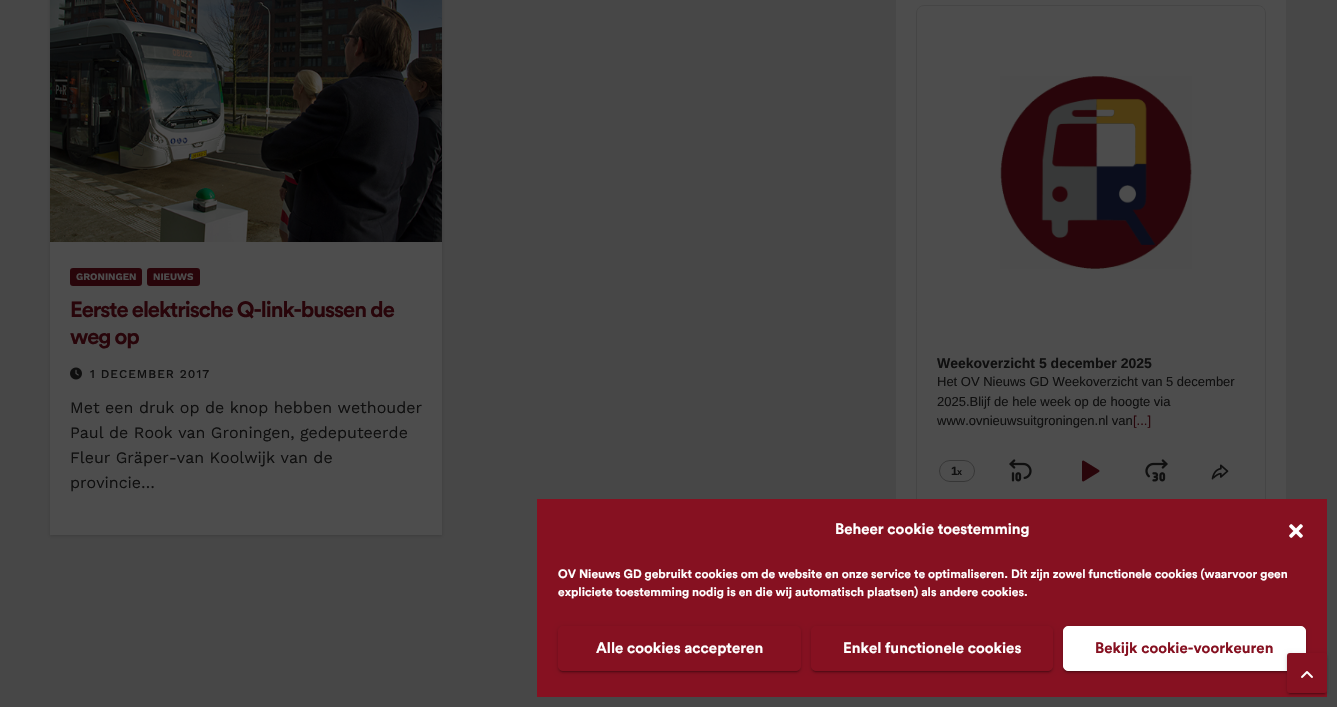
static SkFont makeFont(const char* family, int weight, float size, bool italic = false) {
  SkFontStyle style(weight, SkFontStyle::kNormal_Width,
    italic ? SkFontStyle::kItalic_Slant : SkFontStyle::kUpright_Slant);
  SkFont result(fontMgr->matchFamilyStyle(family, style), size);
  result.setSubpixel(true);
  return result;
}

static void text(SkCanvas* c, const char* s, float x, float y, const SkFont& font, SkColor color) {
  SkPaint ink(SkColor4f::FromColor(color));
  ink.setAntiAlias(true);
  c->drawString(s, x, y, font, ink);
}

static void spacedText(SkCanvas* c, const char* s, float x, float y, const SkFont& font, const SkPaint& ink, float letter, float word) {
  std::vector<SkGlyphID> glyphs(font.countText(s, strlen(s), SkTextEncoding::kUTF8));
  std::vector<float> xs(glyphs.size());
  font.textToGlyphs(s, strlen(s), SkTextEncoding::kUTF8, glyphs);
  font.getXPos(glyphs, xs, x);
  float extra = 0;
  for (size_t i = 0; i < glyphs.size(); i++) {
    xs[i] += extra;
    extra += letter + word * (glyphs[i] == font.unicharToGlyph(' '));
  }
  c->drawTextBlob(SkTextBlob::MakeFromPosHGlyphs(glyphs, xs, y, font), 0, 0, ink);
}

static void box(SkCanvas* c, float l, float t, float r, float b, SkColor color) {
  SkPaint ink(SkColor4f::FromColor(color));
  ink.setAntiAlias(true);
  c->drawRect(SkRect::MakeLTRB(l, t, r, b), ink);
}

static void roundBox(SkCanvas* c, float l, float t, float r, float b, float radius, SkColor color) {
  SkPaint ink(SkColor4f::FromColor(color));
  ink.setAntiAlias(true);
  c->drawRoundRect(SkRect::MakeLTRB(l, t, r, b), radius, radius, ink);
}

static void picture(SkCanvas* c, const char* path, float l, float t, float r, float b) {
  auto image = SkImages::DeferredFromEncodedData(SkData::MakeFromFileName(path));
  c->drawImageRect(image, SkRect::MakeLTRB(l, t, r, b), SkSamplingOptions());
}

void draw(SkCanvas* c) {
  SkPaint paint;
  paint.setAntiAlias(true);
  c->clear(0xff474747);
  paint.setColor(0x26000000);
  paint.setMaskFilter(SkMaskFilter::MakeBlur(kNormal_SkBlurStyle, 1.5f));
  c->drawRect(SkRect::MakeLTRB(50, -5, 442, 536), paint);
  paint.setMaskFilter(nullptr);
  box(c, 50, 242, 442, 535, 0xff4d4d4d);
  picture(c, "img_01.png", 50, 0, 442, 242);
  roundBox(c, 70, 268, 142, 286, 3, 0xff28050a);
  SkFont face1 = makeFont("Work Sans", 700, 10);
  text(c, "GRONINGEN", 76, 280, face1, 0xff4d4d4d);
  roundBox(c, 147, 268, 200, 286, 3, 0xff28050a);
  text(c, "NIEUWS", 153, 280, face1, 0xff4d4d4d);
  SkFont face2 = makeFont("Circular", 700, 22);
  paint.setColor(0xff28050a);
  spacedText(c, "Eerste elektrische Q-link-bussen de", 70, 317, face2, paint, -1.1f, 0);
  spacedText(c, "weg op", 70, 344, face2, paint, -1.1f, 0);
  picture(c, "img_02.png", 70, 367, 82, 380);
  SkFont face3 = makeFont("Work Sans", 500, 12);
  paint.setColor(0xff0f0f0f);
  spacedText(c, "1 DECEMBER 2017", 90, 378, face3, paint, 1, 0);
  SkFont face4 = makeFont("Work Sans", 400, 16);
  text(c, "Met een druk op de knop hebben wethouder", 70, 413, face4, 0xff0f0f0f);
  text(c, "Paul de Rook van Groningen, gedeputeerde", 70, 438, face4, 0xff0f0f0f);
  text(c, "Fleur Gräper-van Koolwijk van de", 70, 463, face4, 0xff0f0f0f);
  text(c, "provincie…", 70, 488, face4, 0xff0f0f0f);
  box(c, 896, 0, 1286, 499, 0xff4d4d4d);
  paint.setStyle(SkPaint::kStroke_Style);
  paint.setStrokeWidth(1);
  paint.setColor(0xff454545);
  c->drawRoundRect(SkRect::MakeLTRB(916.5f, 5.5f, 1265.5f, 617.5f), 7.5f, 7.5f, paint);
  picture(c, "img_03.png", 1000, 76, 1192, 269);
  SkFont face5 = makeFont("Liberation Sans", 700, 14);
  text(c, "Weekoverzicht 5 december 2025", 937, 368, face5, 0xff0f0f0f);
  SkFont face6 = makeFont("Liberation Sans", 400, 13);
  text(c, "Het OV Nieuws GD Weekoverzicht van 5 december", 937, 386, face6, 0xff0f0f0f);
  text(c, "2025.Blijf de hele week op de hoogte via", 937, 406, face6, 0xff0f0f0f);
  text(c, "www.ovnieuwsuitgroningen.nl van", 937, 425, face6, 0xff0f0f0f);
  text(c, "[...]", 1133, 425, face6, 0xff28050a);
  paint.setColor(0xff363636);
  c->drawRoundRect(SkRect::MakeLTRB(939.5f, 460.5f, 974.5f, 481.5f), 10.5f, 10.5f, paint);
  SkFont face7 = makeFont("Liberation Sans", 700, 12);
  text(c, "1", 951, 475, face7, 0xff0f0f0f);
  SkFont face8 = makeFont("Liberation Sans", 700, 9);
  text(c, "x", 957, 475, face8, 0xff0f0f0f);
  picture(c, "img_04.png", 1009, 459, 1032, 482);
  picture(c, "img_05.png", 1082, 460, 1100, 482);
  picture(c, "img_06.png", 1145, 459, 1168, 482);
  picture(c, "img_07.png", 1211, 464, 1229, 480);
  box(c, 537, 499, 1327, 697, 0xff861121);
  SkFont face9 = makeFont("Circular", 700, 15);
  text(c, "Beheer cookie toestemming", 835, 534, face9, 0xffffffff);
  picture(c, "img_08.png", 1289, 524, 1303, 538);
  SkFont face10 = makeFont("Circular", 700, 12);
  text(c, "OV Nieuws GD gebruikt cookies om de website en onze service te optimaliseren. Dit zijn zowel functionele cookies (waarvoor geen", 558, 578, face10, 0xffffffff);
  text(c, "expliciete toestemming nodig is en die wij automatisch plaatsen) als andere cookies.", 558, 596, face10, 0xffffffff);
  paint.setStyle(SkPaint::kFill_Style);
  paint.setColor(0x1f000000);
  paint.setMaskFilter(SkMaskFilter::MakeBlur(kNormal_SkBlurStyle, 2.5f));
  c->drawRoundRect(SkRect::MakeLTRB(558, 627, 801, 672), 5, 5, paint);
  paint.setMaskFilter(nullptr);
  paint.setColor(0x33000000);
  paint.setMaskFilter(SkMaskFilter::MakeBlur(kNormal_SkBlurStyle, 0.5f));
  c->drawRoundRect(SkRect::MakeLTRB(560, 631, 799, 672), 3, 3, paint);
  paint.setMaskFilter(nullptr);
  paint.setColor(0x24000000);
  paint.setMaskFilter(SkMaskFilter::MakeBlur(kNormal_SkBlurStyle, 1));
  c->drawRoundRect(SkRect::MakeLTRB(558, 628, 801, 673), 5, 5, paint);
  paint.setMaskFilter(nullptr);
  paint.setColor(0xff861121);
  c->drawRoundRect(SkRect::MakeLTRB(558.5f, 626.5f, 800.5f, 670.5f), 4.5f, 4.5f, paint);
  paint.setStyle(SkPaint::kStroke_Style);
  c->drawRoundRect(SkRect::MakeLTRB(558.5f, 626.5f, 800.5f, 670.5f), 4.5f, 4.5f, paint);
  text(c, "Alle cookies accepteren", 596, 653, face9, 0xffffffff);
  paint.setStyle(SkPaint::kFill_Style);
  paint.setColor(0x1f000000);
  paint.setMaskFilter(SkMaskFilter::MakeBlur(kNormal_SkBlurStyle, 2.5f));
  c->drawRoundRect(SkRect::MakeLTRB(811, 627, 1053, 672), 5, 5, paint);
  paint.setMaskFilter(nullptr);
  paint.setColor(0x33000000);
  paint.setMaskFilter(SkMaskFilter::MakeBlur(kNormal_SkBlurStyle, 0.5f));
  c->drawRoundRect(SkRect::MakeLTRB(813, 631, 1051, 672), 3, 3, paint);
  paint.setMaskFilter(nullptr);
  paint.setColor(0x24000000);
  paint.setMaskFilter(SkMaskFilter::MakeBlur(kNormal_SkBlurStyle, 1));
  c->drawRoundRect(SkRect::MakeLTRB(811, 628, 1053, 673), 5, 5, paint);
  paint.setMaskFilter(nullptr);
  paint.setColor(0xff861121);
  c->drawRoundRect(SkRect::MakeLTRB(811.5f, 626.5f, 1052.5f, 670.5f), 4.5f, 4.5f, paint);
  paint.setStyle(SkPaint::kStroke_Style);
  c->drawRoundRect(SkRect::MakeLTRB(811.5f, 626.5f, 1052.5f, 670.5f), 4.5f, 4.5f, paint);
  text(c, "Enkel functionele cookies", 843, 653, face9, 0xffffffff);
  paint.setStyle(SkPaint::kFill_Style);
  paint.setColor(0x1f000000);
  paint.setMaskFilter(SkMaskFilter::MakeBlur(kNormal_SkBlurStyle, 2.5f));
  c->drawRoundRect(SkRect::MakeLTRB(1063, 627, 1306, 672), 5, 5, paint);
  paint.setMaskFilter(nullptr);
  paint.setColor(0x33000000);
  paint.setMaskFilter(SkMaskFilter::MakeBlur(kNormal_SkBlurStyle, 0.5f));
  c->drawRoundRect(SkRect::MakeLTRB(1065, 631, 1304, 672), 3, 3, paint);
  paint.setMaskFilter(nullptr);
  paint.setColor(0x24000000);
  paint.setMaskFilter(SkMaskFilter::MakeBlur(kNormal_SkBlurStyle, 1));
  c->drawRoundRect(SkRect::MakeLTRB(1063, 628, 1306, 673), 5, 5, paint);
  paint.setMaskFilter(nullptr);
  paint.setColor(0xffffffff);
  c->drawRoundRect(SkRect::MakeLTRB(1063.5f, 626.5f, 1305.5f, 670.5f), 4.5f, 4.5f, paint);
  paint.setStyle(SkPaint::kStroke_Style);
  c->drawRoundRect(SkRect::MakeLTRB(1063.5f, 626.5f, 1305.5f, 670.5f), 4.5f, 4.5f, paint);
  text(c, "Bekijk cookie-voorkeuren", 1095, 653, face9, 0xff861121);
  paint.setStyle(SkPaint::kFill_Style);
  paint.setColor(0x1f000000);
  paint.setMaskFilter(SkMaskFilter::MakeBlur(kNormal_SkBlurStyle, 2.5f));
  c->drawRoundRect(SkRect::MakeLTRB(1287, 654, 1327, 694), 3, 3, paint);
  paint.setMaskFilter(nullptr);
  paint.setColor(0x33000000);
  paint.setMaskFilter(SkMaskFilter::MakeBlur(kNormal_SkBlurStyle, 0.5f));
  c->drawRoundRect(SkRect::MakeLTRB(1289, 658, 1325, 694), 1, 1, paint);
  paint.setMaskFilter(nullptr);
  paint.setColor(0x24000000);
  paint.setMaskFilter(SkMaskFilter::MakeBlur(kNormal_SkBlurStyle, 1));
  c->drawRoundRect(SkRect::MakeLTRB(1287, 655, 1327, 695), 3, 3, paint);
  paint.setMaskFilter(nullptr);
  paint.setColor(0xff861121);
  c->drawRoundRect(SkRect::MakeLTRB(1288, 654, 1326, 692), 2, 2, paint);
  paint.setStyle(SkPaint::kStroke_Style);
  paint.setStrokeWidth(2);
  c->drawRoundRect(SkRect::MakeLTRB(1288, 654, 1326, 692), 2, 2, paint);
  picture(c, "img_09.png", 1301, 671, 1313, 678);
}
